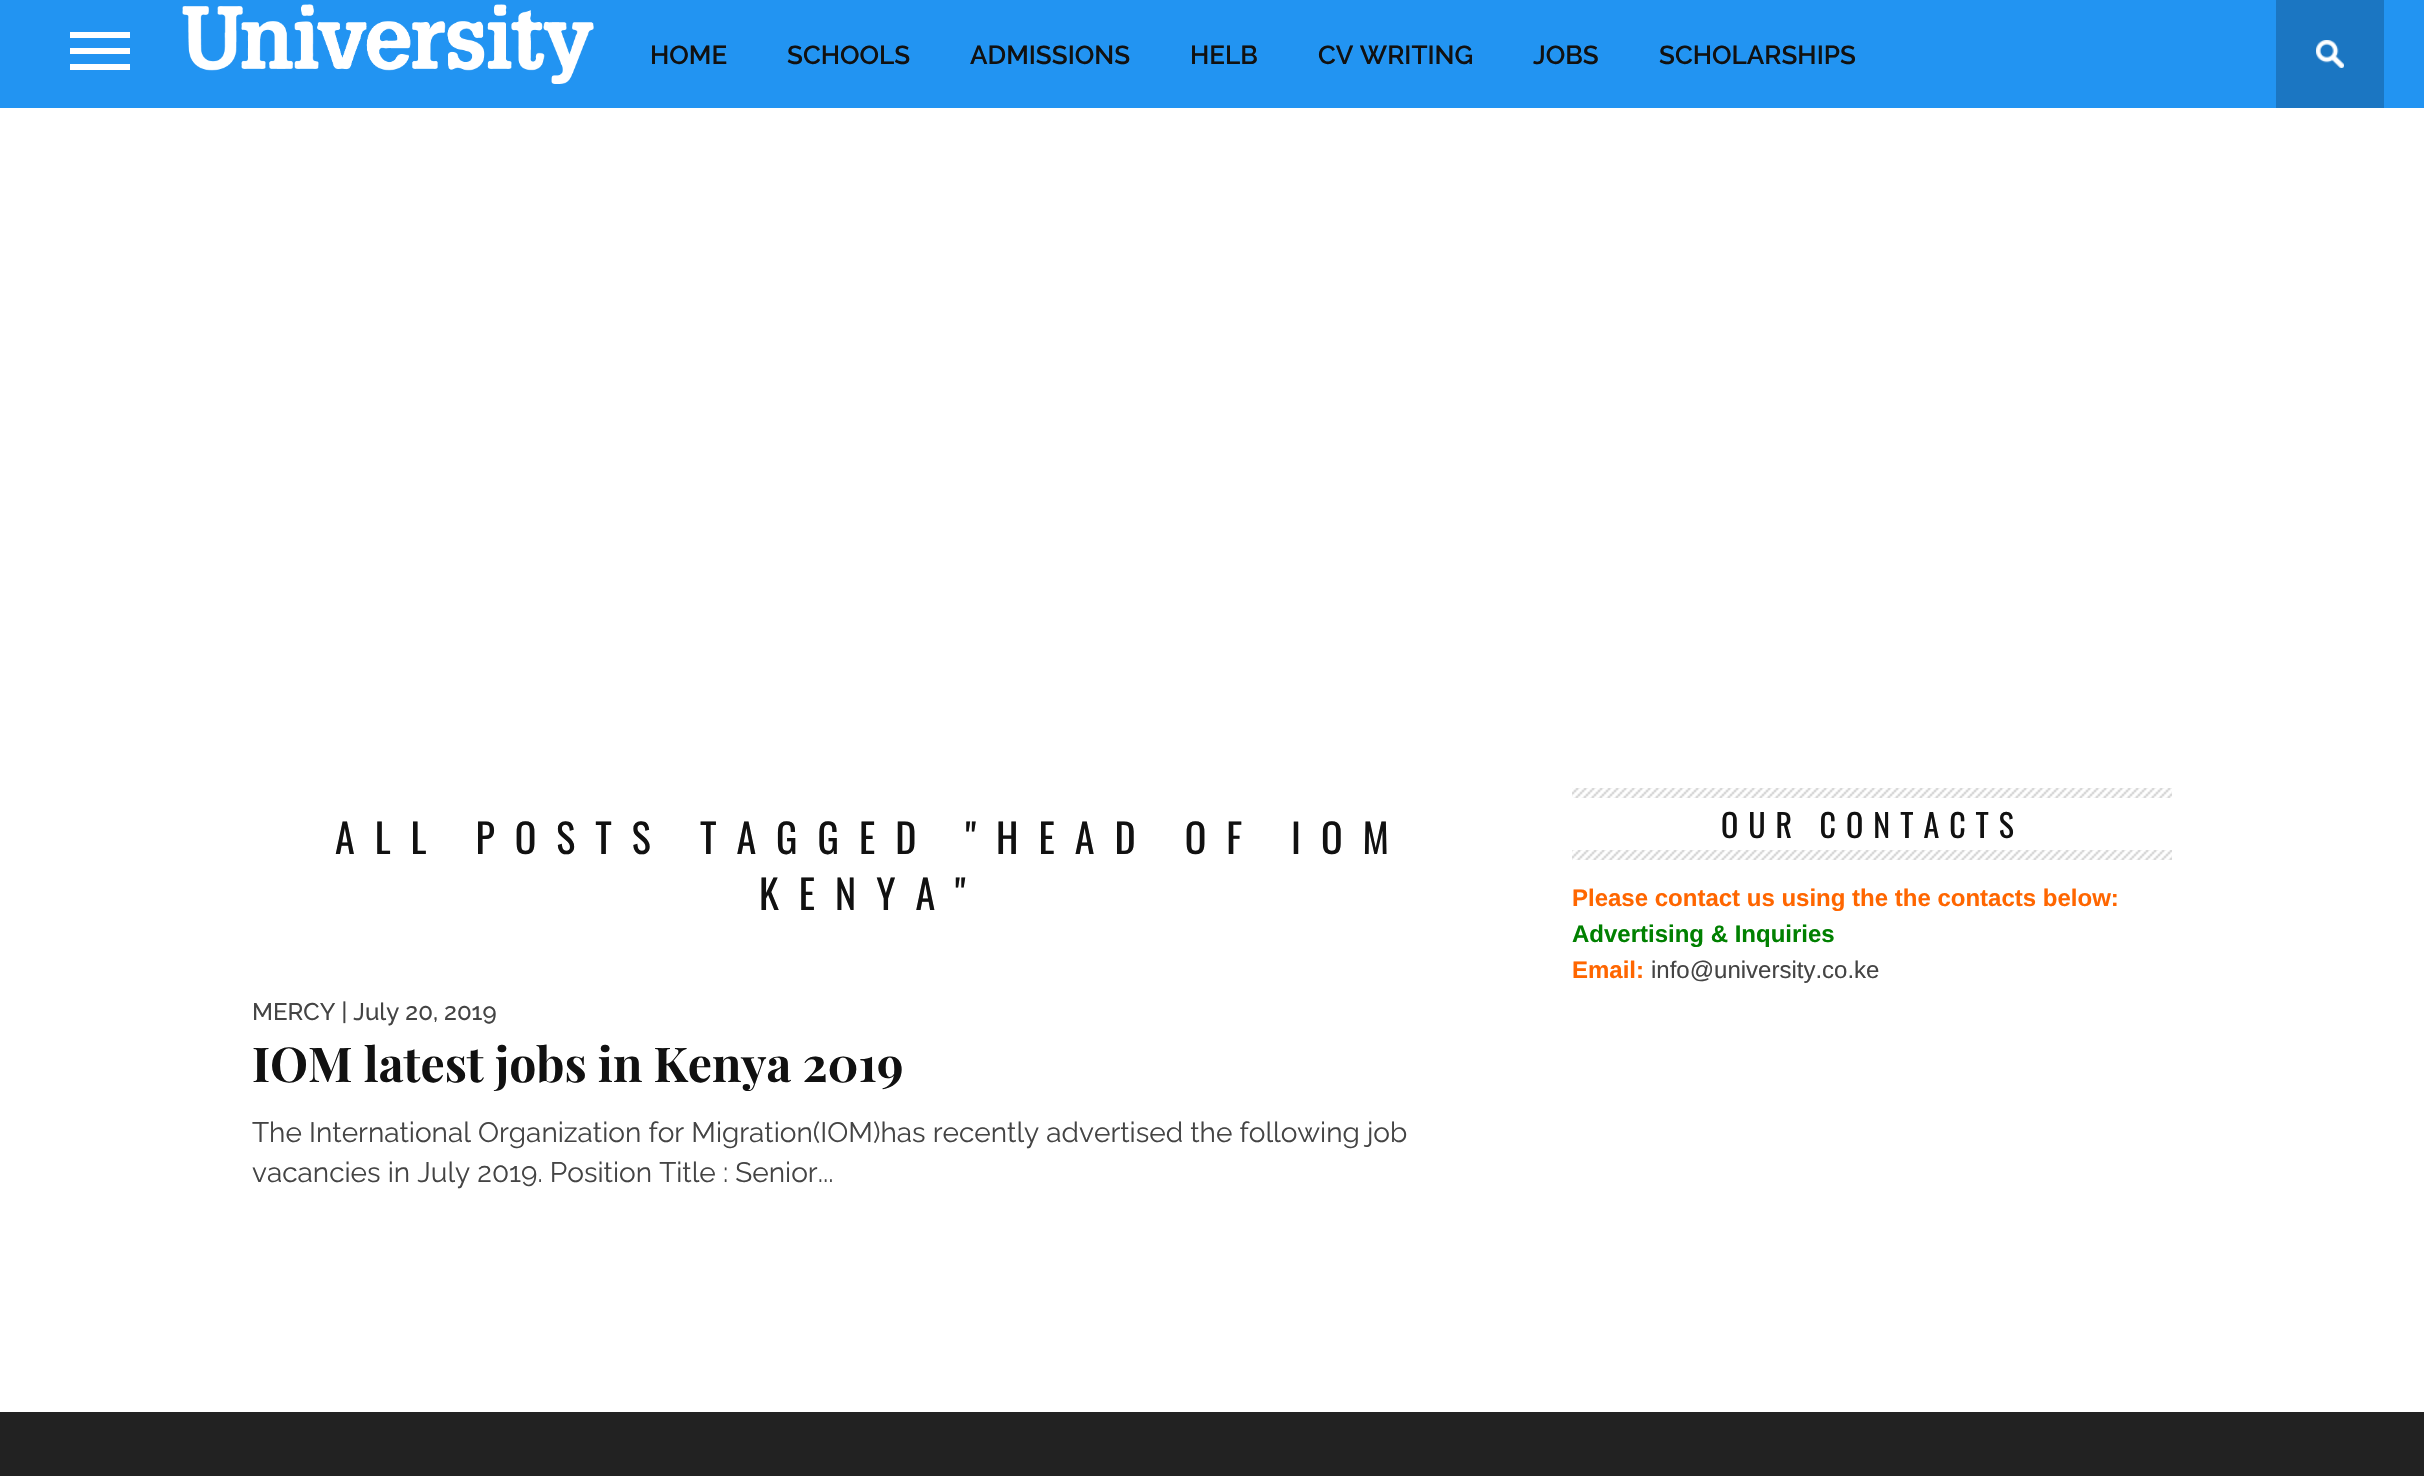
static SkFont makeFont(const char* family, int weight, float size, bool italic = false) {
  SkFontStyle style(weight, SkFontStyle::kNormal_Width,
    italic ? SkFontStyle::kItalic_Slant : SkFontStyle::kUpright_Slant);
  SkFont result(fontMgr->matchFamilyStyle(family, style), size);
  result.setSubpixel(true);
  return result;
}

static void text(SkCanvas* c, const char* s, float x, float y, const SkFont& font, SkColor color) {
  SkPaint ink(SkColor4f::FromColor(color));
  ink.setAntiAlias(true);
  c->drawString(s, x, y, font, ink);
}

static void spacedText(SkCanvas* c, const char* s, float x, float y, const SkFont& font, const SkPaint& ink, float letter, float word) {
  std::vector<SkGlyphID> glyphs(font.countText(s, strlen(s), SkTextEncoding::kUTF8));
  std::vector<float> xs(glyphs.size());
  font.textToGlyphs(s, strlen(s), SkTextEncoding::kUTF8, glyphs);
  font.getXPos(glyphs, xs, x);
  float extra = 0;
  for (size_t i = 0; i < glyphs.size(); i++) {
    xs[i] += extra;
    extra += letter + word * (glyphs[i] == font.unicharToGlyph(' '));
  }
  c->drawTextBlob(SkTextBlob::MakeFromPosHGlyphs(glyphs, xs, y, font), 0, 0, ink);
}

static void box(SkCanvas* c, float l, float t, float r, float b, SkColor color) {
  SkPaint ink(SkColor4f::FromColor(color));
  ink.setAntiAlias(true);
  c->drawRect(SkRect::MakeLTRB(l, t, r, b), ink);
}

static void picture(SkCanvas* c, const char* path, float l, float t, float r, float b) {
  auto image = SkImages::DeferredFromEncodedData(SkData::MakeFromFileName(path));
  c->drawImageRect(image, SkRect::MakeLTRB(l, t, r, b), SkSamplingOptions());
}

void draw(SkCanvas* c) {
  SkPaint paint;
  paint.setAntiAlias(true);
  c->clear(0xffffffff);
  box(c, 0, 0, 2424, 108, 0xff2294f2);
  box(c, 70, 32, 130, 38, 0xffffffff);
  box(c, 70, 48, 130, 54, 0xffffffff);
  box(c, 70, 64, 130, 70, 0xffffffff);
  picture(c, "img_01.png", 182, 4, 594, 84);
  SkFont face1 = makeFont("Raleway", 600, 26);
  text(c, "HOME", 650, 64, face1, 0xff111111);
  text(c, "SCHOOLS", 787, 64, face1, 0xff111111);
  text(c, "ADMISSIONS", 970, 64, face1, 0xff111111);
  text(c, "HELB", 1190, 64, face1, 0xff111111);
  text(c, "CV WRITING", 1318, 64, face1, 0xff111111);
  text(c, "JOBS", 1533, 64, face1, 0xff111111);
  text(c, "SCHOLARSHIPS", 1659, 64, face1, 0xff111111);
  box(c, 2276, 0, 2384, 108, 0xff1b76c2);
  picture(c, "img_02.png", 2316, 40, 2344, 68);
  SkFont face2 = makeFont("Oswald", 400, 40);
  paint.setColor(0xff111111);
  spacedText(c, "ALL POSTS TAGGED \"HEAD OF IOM", 335, 854, face2, paint, 20, 0);
  spacedText(c, "KENYA\"", 759, 910, face2, paint, 20, 0);
  SkFont face3 = makeFont("Raleway", 500, 24);
  text(c, "MERCY | July 20, 2019", 252, 1020, face3, 0xff444444);
  SkFont face4 = makeFont("Playfair Display", 700, 48);
  text(c, "IOM latest jobs in Kenya 2019", 252, 1082, face4, 0xff111111);
  SkFont face5 = makeFont("Raleway", 400, 28);
  text(c, "The International Organization for Migration(IOM)has recently advertised the following job", 252, 1142, face5, 0xff444444);
  text(c, "vacancies in July 2019. Position Title : Senior...", 252, 1182, face5, 0xff444444);
  picture(c, "img_03.png", 1572, 788, 2172, 860);
  box(c, 1572, 798, 2172, 850, 0xffffffff);
  SkFont face6 = makeFont("Oswald", 400, 32);
  spacedText(c, "OUR CONTACTS", 1721, 838, face6, paint, 10, 0);
  SkFont face7 = makeFont("Liberation Sans", 700, 24);
  text(c, "Please contact us using the the contacts below:", 1572, 906, face7, 0xffff6600);
  text(c, "Advertising & Inquiries", 1572, 942, face7, 0xff008000);
  text(c, "Email:", 1572, 978, face7, 0xffff6600);
  SkFont face8 = makeFont("Liberation Sans", 400, 24);
  text(c, "info@university.co.ke", 1651, 978, face8, 0xff444444);
  box(c, 0, 1412, 2424, 1476, 0xff222222);
}
